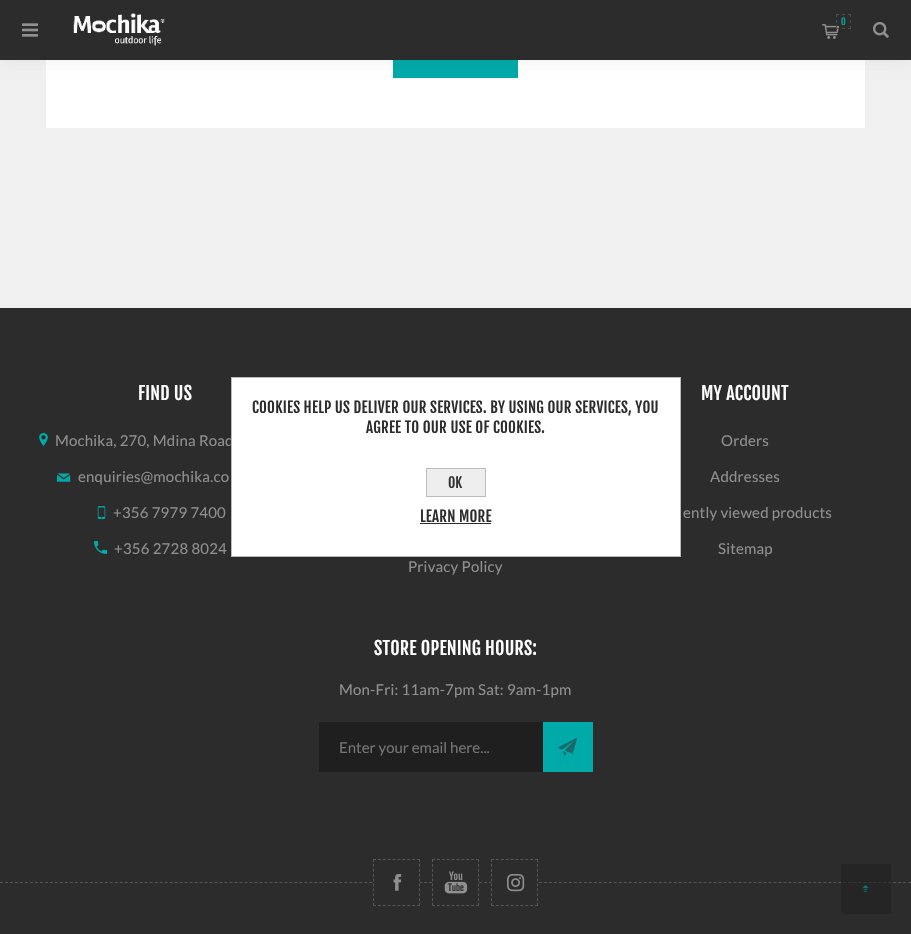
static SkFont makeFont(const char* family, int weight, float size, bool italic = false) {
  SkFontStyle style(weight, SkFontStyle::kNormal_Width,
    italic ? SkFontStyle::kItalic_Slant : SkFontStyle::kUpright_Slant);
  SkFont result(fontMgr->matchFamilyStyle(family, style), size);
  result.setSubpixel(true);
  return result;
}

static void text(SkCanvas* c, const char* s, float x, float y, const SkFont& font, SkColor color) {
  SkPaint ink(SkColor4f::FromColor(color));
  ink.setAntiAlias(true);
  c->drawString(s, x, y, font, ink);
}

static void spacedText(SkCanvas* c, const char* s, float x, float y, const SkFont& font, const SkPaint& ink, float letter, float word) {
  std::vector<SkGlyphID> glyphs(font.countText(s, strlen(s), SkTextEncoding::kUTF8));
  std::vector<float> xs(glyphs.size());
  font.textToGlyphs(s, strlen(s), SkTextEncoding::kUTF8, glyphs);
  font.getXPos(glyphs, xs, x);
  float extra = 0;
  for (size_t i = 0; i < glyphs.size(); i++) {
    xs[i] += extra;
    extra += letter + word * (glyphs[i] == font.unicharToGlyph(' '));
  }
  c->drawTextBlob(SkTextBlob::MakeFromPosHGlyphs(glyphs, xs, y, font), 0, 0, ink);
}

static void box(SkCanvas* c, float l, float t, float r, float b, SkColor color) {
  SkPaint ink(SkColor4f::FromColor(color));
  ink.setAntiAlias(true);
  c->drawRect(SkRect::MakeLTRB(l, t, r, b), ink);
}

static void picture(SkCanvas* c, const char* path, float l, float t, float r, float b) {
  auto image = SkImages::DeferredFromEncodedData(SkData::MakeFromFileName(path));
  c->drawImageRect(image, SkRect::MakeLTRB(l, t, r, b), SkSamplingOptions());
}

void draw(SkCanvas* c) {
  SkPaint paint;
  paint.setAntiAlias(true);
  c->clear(0xfff0f0f0);
  box(c, 46, 60, 865, 128, 0xffffffff);
  box(c, 393, 60, 518, 78, 0xff00aaa9);
  paint.setColor(0x0f000000);
  paint.setMaskFilter(SkMaskFilter::MakeBlur(kNormal_SkBlurStyle, 7));
  c->drawRect(SkRect::MakeLTRB(0, 0, 911, 60), paint);
  paint.setMaskFilter(nullptr);
  box(c, 0, 0, 911, 60, 0xff2c2c2c);
  picture(c, "img_01.png", 22, 23, 38, 37);
  picture(c, "img_02.png", 73, 13, 165, 46);
  picture(c, "img_03.png", 822, 24, 839, 39);
  paint.setStyle(SkPaint::kStroke_Style);
  paint.setStrokeWidth(1);
  paint.setColor(0xff4c4c4c);
  c->drawPath(SkPathBuilder().moveTo(836, 14.5f).lineTo(839, 14.5f).moveTo(842, 14.5f).lineTo(845, 14.5f).moveTo(848, 14.5f).lineTo(851, 14.5f).moveTo(850.5f, 14).lineTo(850.5f, 17).moveTo(850.5f, 20).lineTo(850.5f, 23).moveTo(850.5f, 26).lineTo(850.5f, 29).moveTo(836, 28.5f).lineTo(839, 28.5f).moveTo(842, 28.5f).lineTo(845, 28.5f).moveTo(848, 28.5f).lineTo(851, 28.5f).moveTo(836.5f, 14).lineTo(836.5f, 17).moveTo(836.5f, 20).lineTo(836.5f, 23).moveTo(836.5f, 26).lineTo(836.5f, 29).detach(), paint);
  SkFont face1 = makeFont("Fjalla One", 400, 9);
  paint.setStyle(SkPaint::kFill_Style);
  paint.setColor(0xff00aaa9);
  spacedText(c, "0", 841, 25, face1, paint, 0.2f, 0);
  picture(c, "img_04.png", 873, 22, 889, 38);
  box(c, 0, 308, 911, 934, 0xff2c2c2c);
  SkFont face2 = makeFont("Fjalla One", 400, 18);
  paint.setColor(0xffffffff);
  spacedText(c, "FIND US", 138, 400, face2, paint, 0.2f, 0);
  picture(c, "img_05.png", 39, 433, 48, 446);
  SkFont face3 = makeFont("Lato", 400, 15);
  paint.setColor(0xff909090);
  spacedText(c, "Mochika, 270, Mdina Road", 55, 446, face3, paint, 0.2f, 0);
  picture(c, "img_06.png", 57, 473, 71, 482);
  spacedText(c, "enquiries@mochika.co", 78, 482, face3, paint, 0.2f, 0);
  picture(c, "img_07.png", 97, 506, 106, 519);
  spacedText(c, "+356 7979 7400", 113, 518, face3, paint, 0.2f, 0);
  picture(c, "img_08.png", 94, 541, 107, 554);
  spacedText(c, "+356 2728 8024", 114, 554, face3, paint, 0.2f, 0);
  paint.setColor(0xffffffff);
  spacedText(c, "MY ACCOUNT", 701, 400, face2, paint, 0.2f, 0);
  paint.setColor(0xff909090);
  spacedText(c, "Orders", 721, 446, face3, paint, 0.2f, 0);
  spacedText(c, "Addresses", 710, 482, face3, paint, 0.2f, 0);
  spacedText(c, "ently viewed products", 683, 518, face3, paint, 0.2f, 0);
  spacedText(c, "Sitemap", 718, 554, face3, paint, 0.2f, 0);
  spacedText(c, "Privacy Policy", 408, 572, face3, paint, 0.2f, 0);
  paint.setColor(0xffffffff);
  spacedText(c, "STORE OPENING HOURS:", 374, 655, face2, paint, 0.2f, 0);
  paint.setColor(0xff909090);
  spacedText(c, "Mon-Fri: 11am-7pm Sat: 9am-1pm", 339, 695, face3, paint, 0.2f, 0);
  box(c, 319, 722, 543, 772, 0xff1f1f1f);
  text(c, "Enter your email here...", 339, 753, face3, 0xff757575);
  box(c, 543, 722, 593, 772, 0xff00aaa9);
  picture(c, "img_09.png", 558, 738, 577, 756);
  paint.setStyle(SkPaint::kStroke_Style);
  paint.setColor(0xff565656);
  paint.setPathEffect(SkDashPathEffect::Make({{3, 1.99f}}, 0));
  c->drawPath(SkPathBuilder().moveTo(0, 882.5f).lineTo(911, 882.5f).detach(), paint);
  paint.setPathEffect(nullptr);
  box(c, 374, 882, 420, 883, 0xff2c2c2c);
  paint.setPathEffect(SkDashPathEffect::Make({{3, 1.89f}}, 0));
  c->drawPath(SkPathBuilder().moveTo(373, 859.5f).lineTo(420, 859.5f).moveTo(419.5f, 859).lineTo(419.5f, 906).moveTo(373, 905.5f).lineTo(420, 905.5f).moveTo(373.5f, 859).lineTo(373.5f, 906).detach(), paint);
  paint.setPathEffect(nullptr);
  picture(c, "img_10.png", 393, 874, 402, 891);
  box(c, 432, 882, 477, 883, 0xff2c2c2c);
  paint.setPathEffect(SkDashPathEffect::Make({{3, 1.89f}}, 0));
  c->drawPath(SkPathBuilder().moveTo(432, 859.5f).lineTo(479, 859.5f).moveTo(478.5f, 859).lineTo(478.5f, 906).moveTo(432, 905.5f).lineTo(479, 905.5f).moveTo(432.5f, 859).lineTo(432.5f, 906).detach(), paint);
  paint.setPathEffect(nullptr);
  picture(c, "img_11.png", 444, 871, 468, 894);
  box(c, 491, 882, 537, 883, 0xff2c2c2c);
  paint.setPathEffect(SkDashPathEffect::Make({{3, 1.89f}}, 0));
  c->drawPath(SkPathBuilder().moveTo(491, 859.5f).lineTo(538, 859.5f).moveTo(537.5f, 859).lineTo(537.5f, 906).moveTo(491, 905.5f).lineTo(538, 905.5f).moveTo(491.5f, 859).lineTo(491.5f, 906).detach(), paint);
  paint.setPathEffect(nullptr);
  picture(c, "img_12.png", 507, 874, 525, 892);
  paint.setStyle(SkPaint::kFill_Style);
  paint.setColor(0x33000000);
  paint.setMaskFilter(SkMaskFilter::MakeBlur(kNormal_SkBlurStyle, 1));
  c->drawRect(SkRect::MakeLTRB(231, 378, 681, 558), paint);
  paint.setMaskFilter(nullptr);
  paint.setColor(0xffffffff);
  c->drawRect(SkRect::MakeLTRB(231.5f, 377.5f, 680.5f, 556.5f), paint);
  paint.setStyle(SkPaint::kStroke_Style);
  paint.setColor(0xffbbbbbb);
  c->drawRect(SkRect::MakeLTRB(231.5f, 377.5f, 680.5f, 556.5f), paint);
  SkFont face4 = makeFont("Fjalla One", 400, 15);
  paint.setStyle(SkPaint::kFill_Style);
  paint.setColor(0xff2c2c2c);
  spacedText(c, "COOKIES HELP US DELIVER OUR SERVICES. BY USING OUR SERVICES, YOU", 252, 413, face4, paint, 0.2f, 0);
  spacedText(c, "AGREE TO OUR USE OF COOKIES.", 366, 433, face4, paint, 0.2f, 0);
  paint.setColor(0xffeeeeee);
  c->drawRect(SkRect::MakeLTRB(426.5f, 468.5f, 485.5f, 496.5f), paint);
  paint.setStyle(SkPaint::kStroke_Style);
  paint.setColor(0xffbbbbbb);
  c->drawRect(SkRect::MakeLTRB(426.5f, 468.5f, 485.5f, 496.5f), paint);
  SkFont face5 = makeFont("Fjalla One", 400, 14);
  text(c, "OK", 448, 488, face5, 0xff333333);
  paint.setStyle(SkPaint::kFill_Style);
  paint.setColor(0xff2c2c2c);
  spacedText(c, "LEARN MORE", 420, 522, face4, paint, 0.2f, 0);
  box(c, 420, 523, 491, 524, 0xff2c2c2c);
  box(c, 841, 864, 891, 914, 0x991f1f1f);
  picture(c, "img_13.png", 862, 885, 869, 892);
}
